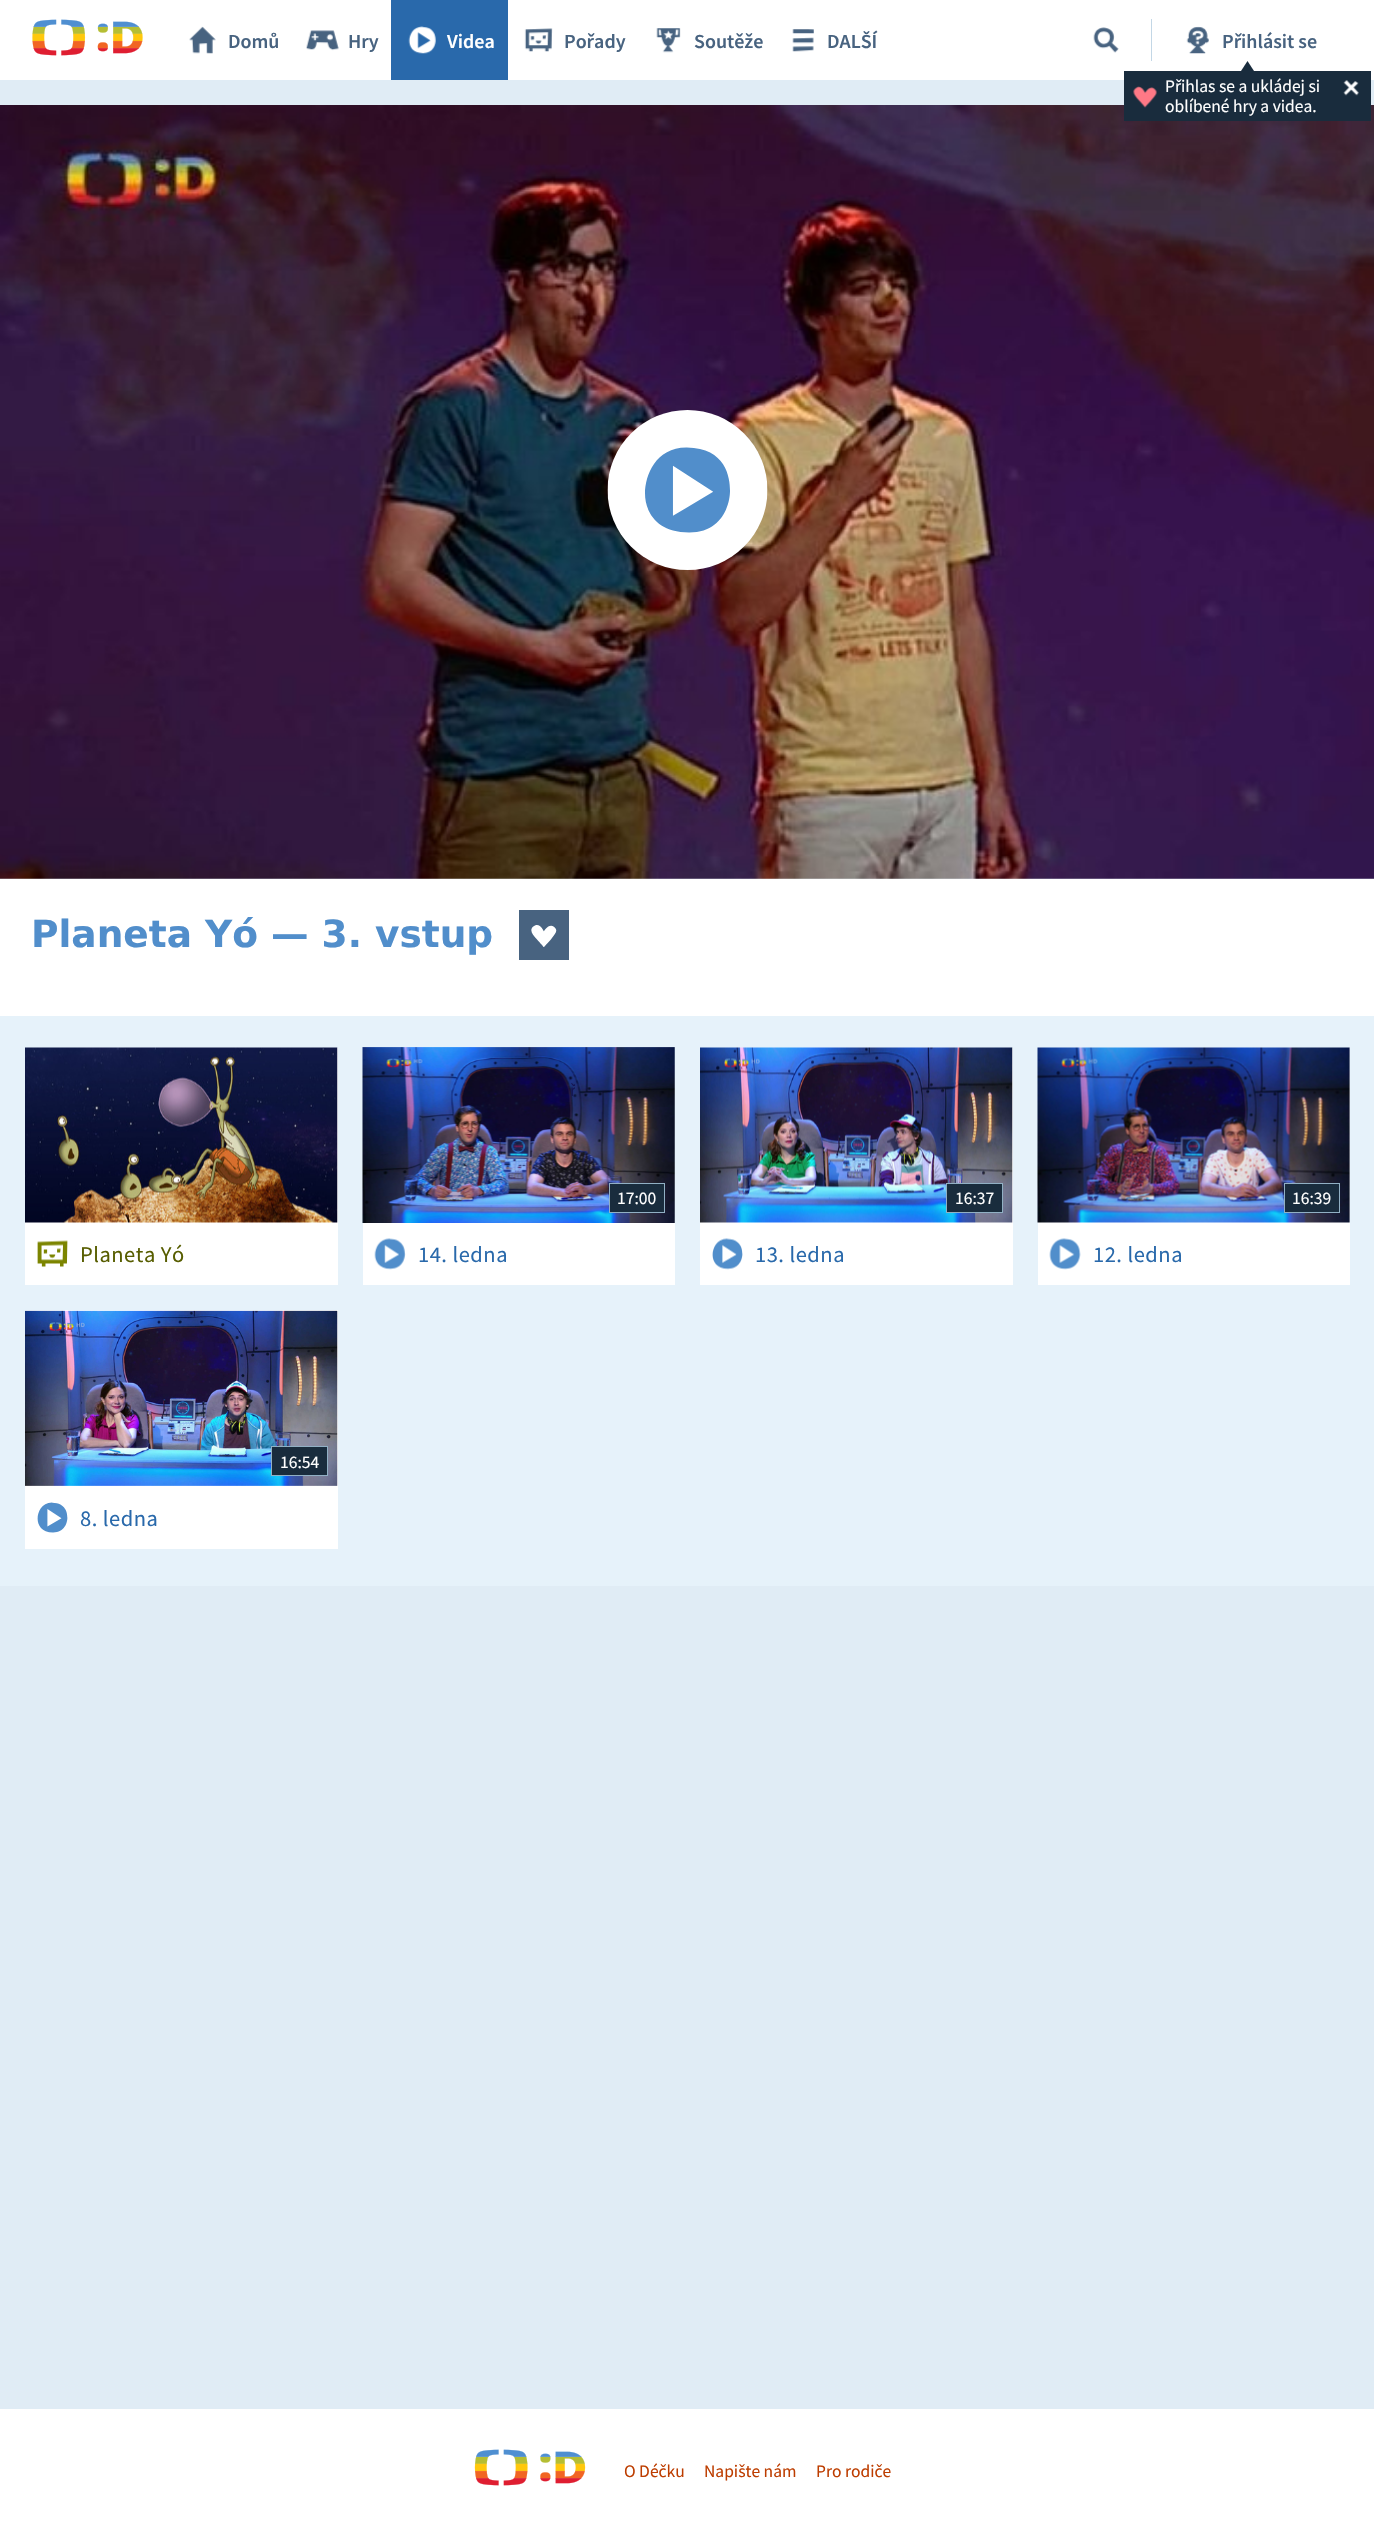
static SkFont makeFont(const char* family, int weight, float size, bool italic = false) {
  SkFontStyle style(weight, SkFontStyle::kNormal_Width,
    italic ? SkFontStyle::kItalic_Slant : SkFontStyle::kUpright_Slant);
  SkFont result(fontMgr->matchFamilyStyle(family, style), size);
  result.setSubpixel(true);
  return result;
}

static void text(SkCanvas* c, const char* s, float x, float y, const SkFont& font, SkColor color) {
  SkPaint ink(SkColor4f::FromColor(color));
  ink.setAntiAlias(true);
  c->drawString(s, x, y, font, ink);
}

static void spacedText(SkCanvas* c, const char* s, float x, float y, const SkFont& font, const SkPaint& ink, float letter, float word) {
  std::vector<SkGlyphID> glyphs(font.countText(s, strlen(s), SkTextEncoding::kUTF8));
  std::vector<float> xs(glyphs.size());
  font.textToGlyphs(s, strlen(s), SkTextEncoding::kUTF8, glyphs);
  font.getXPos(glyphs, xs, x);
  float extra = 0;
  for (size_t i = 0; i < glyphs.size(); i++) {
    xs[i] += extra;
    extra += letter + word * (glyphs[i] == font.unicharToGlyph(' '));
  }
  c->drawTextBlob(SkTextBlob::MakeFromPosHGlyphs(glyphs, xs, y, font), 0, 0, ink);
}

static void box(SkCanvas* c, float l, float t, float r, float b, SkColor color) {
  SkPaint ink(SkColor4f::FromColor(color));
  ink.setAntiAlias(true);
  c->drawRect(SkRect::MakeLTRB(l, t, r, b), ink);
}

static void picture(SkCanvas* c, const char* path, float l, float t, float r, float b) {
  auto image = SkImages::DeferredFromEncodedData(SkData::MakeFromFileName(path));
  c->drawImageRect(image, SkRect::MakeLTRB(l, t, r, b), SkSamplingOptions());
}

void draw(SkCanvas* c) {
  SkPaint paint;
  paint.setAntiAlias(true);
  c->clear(0xffe0ecf5);
  box(c, 0, 0, 1374, 80, 0xffffffff);
  picture(c, "img_01.png", 32, 19, 143, 56);
  picture(c, "img_02.png", 189, 26, 216, 54);
  SkFont face1 = makeFont("Source Sans Pro", 600, 20);
  text(c, "Domů", 228, 48, face1, 0xff486380);
  picture(c, "img_03.png", 306, 30, 339, 51);
  text(c, "Hry", 348, 48, face1, 0xff486380);
  box(c, 391, 0, 508, 80, 0xff2969ab);
  picture(c, "img_04.png", 408, 26, 436, 54);
  text(c, "Videa", 447, 48, face1, 0xffffffff);
  picture(c, "img_05.png", 524, 28, 553, 52);
  text(c, "Pořady", 564, 48, face1, 0xff486380);
  picture(c, "img_06.png", 656, 28, 681, 53);
  text(c, "Soutěže", 694, 48, face1, 0xff486380);
  picture(c, "img_07.png", 792, 29, 814, 52);
  text(c, "DALŠÍ", 827, 48, face1, 0xff486380);
  picture(c, "img_08.png", 1093, 27, 1119, 53);
  box(c, 1151, 19, 1152, 61, 0xffc3d7e6);
  picture(c, "img_09.png", 1186, 26, 1209, 54);
  text(c, "Přihlásit se", 1222, 48, face1, 0xff486380);
  picture(c, "img_12.png", 0, 105, 1374, 879);
  box(c, 1124, 71, 1371, 121, 0xff192c3d);
  paint.setColor(0xff192c3d);
  c->drawPath(SkPathBuilder().moveTo(1254, 71).lineTo(1241, 71).lineTo(1247.5f, 61).close().detach(), paint);
  picture(c, "img_10.png", 1133, 86, 1157, 108);
  SkFont face2 = makeFont("Source Sans Pro", 400, 17.5f);
  text(c, "Přihlas se a ukládej si", 1165, 92, face2, 0xffffffff);
  text(c, "oblíbené hry a videa.", 1165, 112, face2, 0xffffffff);
  picture(c, "img_11.png", 1343, 80, 1359, 96);
  picture(c, "img_13.png", 607, 410, 768, 570);
  box(c, 0, 879, 1374, 1016, 0xffffffff);
  SkFont face3 = makeFont("DejaVu Sans", 700, 37.5f);
  text(c, "Planeta Yó — 3. vstup", 31, 947, face3, 0xff518ecb);
  box(c, 519, 910, 569, 960, 0xff486380);
  picture(c, "img_14.png", 531, 925, 557, 947);
  box(c, 0, 1016, 1374, 1586, 0xffe6f2fa);
  picture(c, "img_17.png", 362, 1047, 675, 1223);
  c->save();
  c->clipRect(SkRect::MakeLTRB(513, 974, 575, 1124));
  text(c, "ř", 570, 1096, face2, 0xff131553);
  c->restore();
  box(c, 25, 1048, 338, 1285, 0xffffffff);
  picture(c, "img_15.png", 25, 1047, 338, 1223);
  picture(c, "img_16.png", 37, 1240, 68, 1267);
  SkFont face4 = makeFont("Source Sans Pro", 400, 22.5f);
  paint.setColor(0xff575d00);
  spacedText(c, "Planeta Yó", 80, 1262, face4, paint, 0.5f, 0);
  paint.setColor(0xff192c3d);
  c->drawRect(SkRect::MakeLTRB(609.5f, 1183.5f, 664.5f, 1212.5f), paint);
  paint.setStyle(SkPaint::kStroke_Style);
  paint.setStrokeWidth(1);
  paint.setColor(0xff91b0c4);
  c->drawRect(SkRect::MakeLTRB(609.5f, 1183.5f, 664.5f, 1212.5f), paint);
  text(c, "17:00", 617, 1204, face2, 0xffffffff);
  box(c, 363, 1223, 675, 1285, 0xffffffff);
  picture(c, "img_18.png", 374, 1238, 406, 1270);
  paint.setStyle(SkPaint::kFill_Style);
  paint.setColor(0xff2969ab);
  spacedText(c, "14. ledna", 418, 1262, face4, paint, 0.5f, 0);
  box(c, 700, 1048, 1013, 1285, 0xffffffff);
  picture(c, "img_19.png", 700, 1047, 1013, 1223);
  paint.setColor(0xff192c3d);
  c->drawRect(SkRect::MakeLTRB(946.5f, 1183.5f, 1002.5f, 1212.5f), paint);
  paint.setStyle(SkPaint::kStroke_Style);
  paint.setColor(0xff91b0c4);
  c->drawRect(SkRect::MakeLTRB(946.5f, 1183.5f, 1002.5f, 1212.5f), paint);
  text(c, "16:37", 955, 1204, face2, 0xffffffff);
  picture(c, "img_20.png", 712, 1238, 743, 1270);
  paint.setStyle(SkPaint::kFill_Style);
  paint.setColor(0xff2969ab);
  spacedText(c, "13. ledna", 755, 1262, face4, paint, 0.5f, 0);
  box(c, 1038, 1048, 1350, 1285, 0xffffffff);
  picture(c, "img_21.png", 1037, 1047, 1350, 1223);
  paint.setColor(0xff192c3d);
  c->drawRect(SkRect::MakeLTRB(1284.5f, 1183.5f, 1339.5f, 1212.5f), paint);
  paint.setStyle(SkPaint::kStroke_Style);
  paint.setColor(0xff91b0c4);
  c->drawRect(SkRect::MakeLTRB(1284.5f, 1183.5f, 1339.5f, 1212.5f), paint);
  text(c, "16:39", 1292, 1204, face2, 0xffffffff);
  picture(c, "img_22.png", 1049, 1238, 1081, 1270);
  paint.setStyle(SkPaint::kFill_Style);
  paint.setColor(0xff2969ab);
  spacedText(c, "12. ledna", 1093, 1262, face4, paint, 0.5f, 0);
  box(c, 25, 1310, 338, 1549, 0xffffffff);
  picture(c, "img_23.png", 25, 1310, 338, 1486);
  paint.setColor(0xff192c3d);
  c->drawRect(SkRect::MakeLTRB(271.5f, 1446.5f, 327.5f, 1475.5f), paint);
  paint.setStyle(SkPaint::kStroke_Style);
  paint.setColor(0xff91b0c4);
  c->drawRect(SkRect::MakeLTRB(271.5f, 1446.5f, 327.5f, 1475.5f), paint);
  text(c, "16:54", 280, 1468, face2, 0xffffffff);
  picture(c, "img_24.png", 37, 1502, 68, 1533);
  paint.setStyle(SkPaint::kFill_Style);
  paint.setColor(0xff2969ab);
  spacedText(c, "8. ledna", 80, 1526, face4, paint, 0.5f, 0);
  box(c, 0, 2409, 1374, 2526, 0xffffffff);
  picture(c, "img_25.png", 474, 2449, 586, 2486);
  text(c, "O Déčku", 624, 2477, face2, 0xffbd3d00);
  text(c, "Napište nám", 704, 2477, face2, 0xffbd3d00);
  text(c, "Pro rodiče", 816, 2477, face2, 0xffbd3d00);
}
